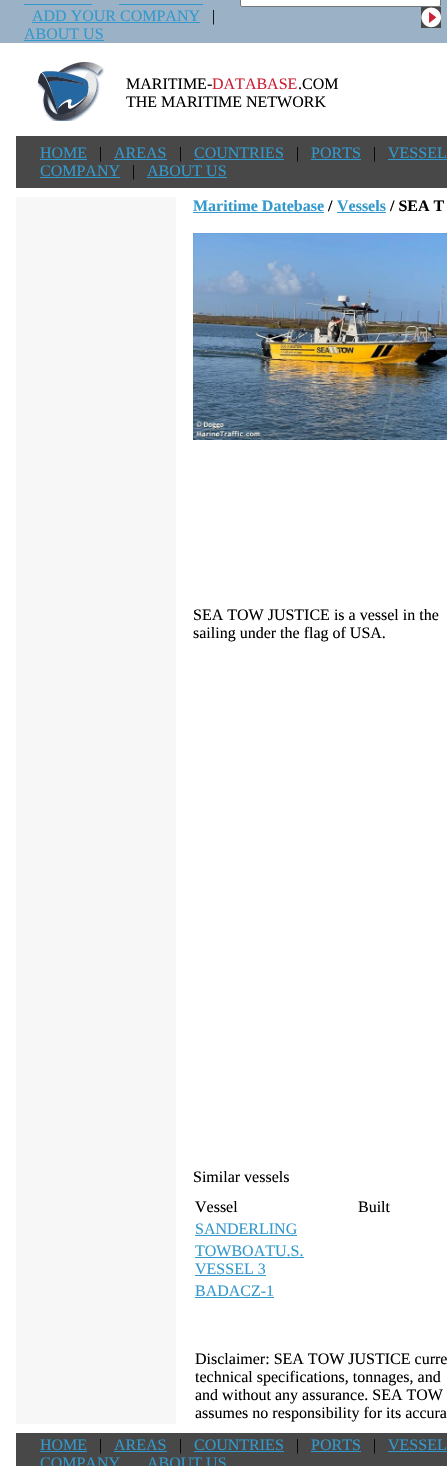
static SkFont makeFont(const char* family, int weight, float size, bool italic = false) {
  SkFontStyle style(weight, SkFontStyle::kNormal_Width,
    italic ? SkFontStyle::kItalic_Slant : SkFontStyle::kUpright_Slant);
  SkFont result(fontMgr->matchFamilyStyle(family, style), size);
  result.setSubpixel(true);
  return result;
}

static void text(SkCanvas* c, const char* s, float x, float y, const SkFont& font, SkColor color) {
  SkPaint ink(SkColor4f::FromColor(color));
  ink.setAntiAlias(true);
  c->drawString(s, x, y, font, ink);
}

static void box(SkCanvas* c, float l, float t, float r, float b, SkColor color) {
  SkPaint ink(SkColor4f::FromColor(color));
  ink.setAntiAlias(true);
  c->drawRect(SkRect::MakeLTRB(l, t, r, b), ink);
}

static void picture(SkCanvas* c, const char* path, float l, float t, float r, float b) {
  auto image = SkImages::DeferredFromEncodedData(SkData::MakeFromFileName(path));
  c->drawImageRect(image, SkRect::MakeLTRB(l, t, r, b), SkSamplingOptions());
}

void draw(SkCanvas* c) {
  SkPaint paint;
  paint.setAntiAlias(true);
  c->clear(0xff9ab1c6);
  box(c, 24, 4, 92, 5, 0xff3399cc);
  box(c, 119, 4, 203, 5, 0xff3399cc);
  SkFont face1 = makeFont("Liberation Serif", 400, 16);
  text(c, "ADD YOUR COMPANY", 32, 21, face1, 0xff3399cc);
  box(c, 32, 22, 200, 23, 0xff3399cc);
  text(c, "|", 212, 21, face1, 0xff000000);
  text(c, "ABOUT US", 24, 39, face1, 0xff3399cc);
  box(c, 24, 40, 104, 41, 0xff3399cc);
  paint.setColor(0xffffffff);
  c->drawRoundRect(SkRect::MakeLTRB(240.5f, -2.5f, 440.5f, 6.5f), 1.5f, 1.5f, paint);
  paint.setStyle(SkPaint::kStroke_Style);
  paint.setStrokeWidth(1);
  paint.setColor(0xff767676);
  c->drawRoundRect(SkRect::MakeLTRB(240.5f, -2.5f, 440.5f, 6.5f), 1.5f, 1.5f, paint);
  picture(c, "img_01.png", 421, 7, 441, 28);
  box(c, 0, 43, 447, 1466, 0xffffffff);
  picture(c, "img_02.png", 37, 62, 105, 121);
  text(c, "MARITIME-", 126, 89, face1, 0xff000000);
  text(c, "DATABASE", 212, 89, face1, 0xffcd2035);
  text(c, ".COM", 298, 89, face1, 0xff000000);
  text(c, "THE MARITIME NETWORK", 126, 107, face1, 0xff000000);
  box(c, 16, 136, 447, 188, 0xff484848);
  text(c, "HOME", 40, 158, face1, 0xff3399cc);
  box(c, 40, 159, 87, 160, 0xff3399cc);
  text(c, "|", 99, 158, face1, 0xff000000);
  text(c, "AREAS", 114, 158, face1, 0xff3399cc);
  box(c, 114, 159, 167, 160, 0xff3399cc);
  text(c, "|", 179, 158, face1, 0xff000000);
  text(c, "COUNTRIES", 194, 158, face1, 0xff3399cc);
  box(c, 194, 159, 284, 160, 0xff3399cc);
  text(c, "|", 296, 158, face1, 0xff000000);
  text(c, "PORTS", 311, 158, face1, 0xff3399cc);
  box(c, 311, 159, 361, 160, 0xff3399cc);
  text(c, "|", 373, 158, face1, 0xff000000);
  text(c, "VESSEL", 388, 158, face1, 0xff3399cc);
  box(c, 388, 159, 447, 160, 0xff3399cc);
  text(c, "COMPANY", 40, 176, face1, 0xff3399cc);
  box(c, 40, 177, 120, 178, 0xff3399cc);
  text(c, "|", 132, 176, face1, 0xff000000);
  text(c, "ABOUT US", 147, 176, face1, 0xff3399cc);
  box(c, 147, 177, 227, 178, 0xff3399cc);
  box(c, 16, 197, 176, 1424, 0xfff7f7f7);
  SkFont face2 = makeFont("Liberation Serif", 700, 16);
  text(c, "Maritime Datebase", 193, 211, face2, 0xff3399cc);
  box(c, 193, 212, 324, 213, 0xff3399cc);
  text(c, "/", 328, 211, face2, 0xff000000);
  text(c, "Vessels", 337, 211, face2, 0xff3399cc);
  box(c, 337, 212, 386, 213, 0xff3399cc);
  text(c, "/ SEA T", 390, 211, face2, 0xff000000);
  picture(c, "img_03.png", 193, 233, 447, 440);
  text(c, "SEA TOW JUSTICE is a vessel in the", 193, 620, face1, 0xff000000);
  text(c, "sailing under the flag of USA.", 193, 638, face1, 0xff000000);
  text(c, "Similar vessels", 193, 1182, face1, 0xff000000);
  text(c, "Vessel", 195, 1212, face1, 0xff000000);
  text(c, "Built", 358, 1212, face1, 0xff000000);
  text(c, "SANDERLING", 195, 1234, face1, 0xff3399cc);
  box(c, 195, 1235, 297, 1236, 0xff3399cc);
  text(c, "TOWBOATU.S.", 195, 1256, face1, 0xff3399cc);
  box(c, 195, 1257, 304, 1258, 0xff3399cc);
  text(c, "VESSEL 3", 195, 1274, face1, 0xff3399cc);
  box(c, 195, 1275, 266, 1276, 0xff3399cc);
  text(c, "BADACZ-1", 195, 1296, face1, 0xff3399cc);
  box(c, 195, 1297, 274, 1298, 0xff3399cc);
  text(c, "Disclaimer: SEA TOW JUSTICE curre", 195, 1364, face1, 0xff000000);
  text(c, "technical specifications, tonnages, and", 195, 1382, face1, 0xff000000);
  text(c, "and without any assurance. SEA TOW", 195, 1400, face1, 0xff000000);
  text(c, "assumes no responsibility for its accura", 195, 1418, face1, 0xff000000);
  box(c, 16, 1433, 447, 1466, 0xff484848);
  text(c, "HOME", 40, 1450, face1, 0xff3399cc);
  box(c, 40, 1451, 87, 1452, 0xff3399cc);
  text(c, "|", 99, 1450, face1, 0xff000000);
  text(c, "AREAS", 114, 1450, face1, 0xff3399cc);
  box(c, 114, 1451, 167, 1452, 0xff3399cc);
  text(c, "|", 179, 1450, face1, 0xff000000);
  text(c, "COUNTRIES", 194, 1450, face1, 0xff3399cc);
  box(c, 194, 1451, 284, 1452, 0xff3399cc);
  text(c, "|", 296, 1450, face1, 0xff000000);
  text(c, "PORTS", 311, 1450, face1, 0xff3399cc);
  box(c, 311, 1451, 361, 1452, 0xff3399cc);
  text(c, "|", 373, 1450, face1, 0xff000000);
  text(c, "VESSEL", 388, 1450, face1, 0xff3399cc);
  box(c, 388, 1451, 447, 1452, 0xff3399cc);
  text(c, "COMPANY", 40, 1468, face1, 0xff3399cc);
  text(c, "ABOUT US", 147, 1468, face1, 0xff3399cc);
}
